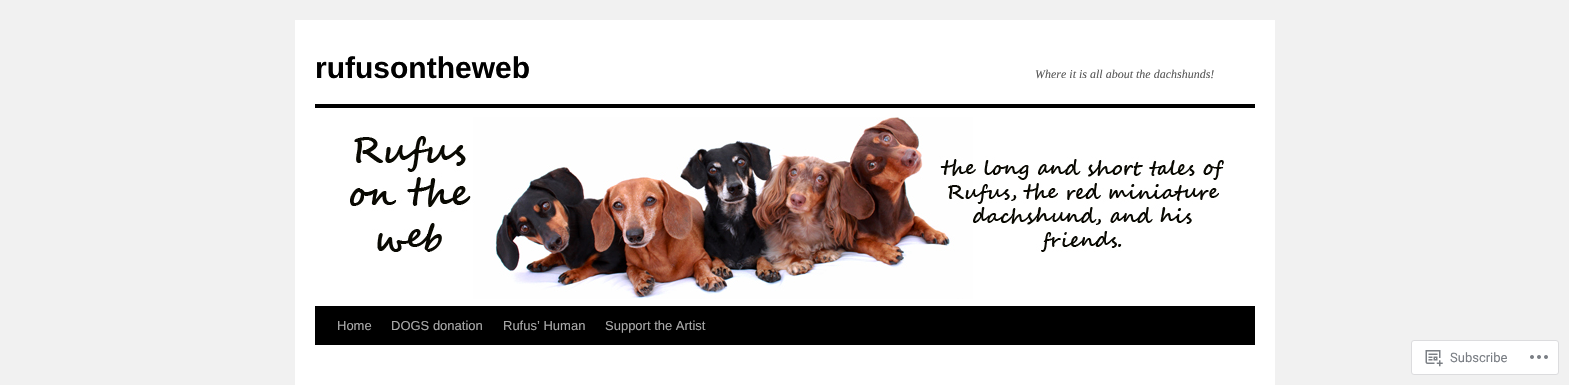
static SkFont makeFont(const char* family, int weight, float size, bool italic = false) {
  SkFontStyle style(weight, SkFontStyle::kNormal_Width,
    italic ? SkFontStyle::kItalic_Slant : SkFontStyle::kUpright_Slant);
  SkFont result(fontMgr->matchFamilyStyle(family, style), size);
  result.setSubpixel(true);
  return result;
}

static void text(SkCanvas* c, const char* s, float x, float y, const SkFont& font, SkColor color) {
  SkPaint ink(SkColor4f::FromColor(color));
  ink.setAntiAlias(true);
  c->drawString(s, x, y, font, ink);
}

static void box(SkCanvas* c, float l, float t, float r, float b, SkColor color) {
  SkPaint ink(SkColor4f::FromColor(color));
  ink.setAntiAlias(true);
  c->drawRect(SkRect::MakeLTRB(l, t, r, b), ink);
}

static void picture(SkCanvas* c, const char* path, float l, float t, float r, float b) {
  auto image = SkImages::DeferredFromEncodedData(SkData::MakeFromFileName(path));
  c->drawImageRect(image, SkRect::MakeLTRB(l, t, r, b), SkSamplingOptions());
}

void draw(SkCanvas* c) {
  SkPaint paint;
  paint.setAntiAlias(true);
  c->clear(0xfff1f1f1);
  box(c, 295, 20, 1275, 385, 0xffffffff);
  SkFont face1 = makeFont("Liberation Sans", 700, 30);
  text(c, "rufusontheweb", 315, 78, face1, 0xff000000);
  SkFont face2 = makeFont("Liberation Serif", 400, 12, true);
  text(c, "Where it is all about the dachshunds!", 1035, 78, face2, 0xff595959);
  box(c, 315, 104, 1255, 108, 0xff000000);
  box(c, 315, 306, 1255, 345, 0xff000000);
  picture(c, "img_01.png", 350, 117, 1224, 299);
  SkFont face3 = makeFont("Liberation Sans", 400, 13);
  text(c, "Home", 337, 330, face3, 0xffaaaaaa);
  text(c, "DOGS donation", 391, 330, face3, 0xffaaaaaa);
  text(c, "Rufus’ Human", 503, 330, face3, 0xffaaaaaa);
  text(c, "Support the Artist", 605, 330, face3, 0xffaaaaaa);
  paint.setColor(0xffffffff);
  c->drawRoundRect(SkRect::MakeLTRB(1411.5f, 340.5f, 1558.5f, 374.5f), 2.5f, 2.5f, paint);
  paint.setStyle(SkPaint::kStroke_Style);
  paint.setStrokeWidth(1);
  paint.setColor(0xffdcdcde);
  c->drawRoundRect(SkRect::MakeLTRB(1411.5f, 340.5f, 1558.5f, 374.5f), 2.5f, 2.5f, paint);
  picture(c, "img_02.png", 1425, 350, 1443, 367);
  SkFont face4 = makeFont("Roboto", 400, 13);
  text(c, "Subscribe", 1450, 362, face4, 0xff7a7e84);
  picture(c, "img_03.png", 1530, 355, 1548, 359);
}
